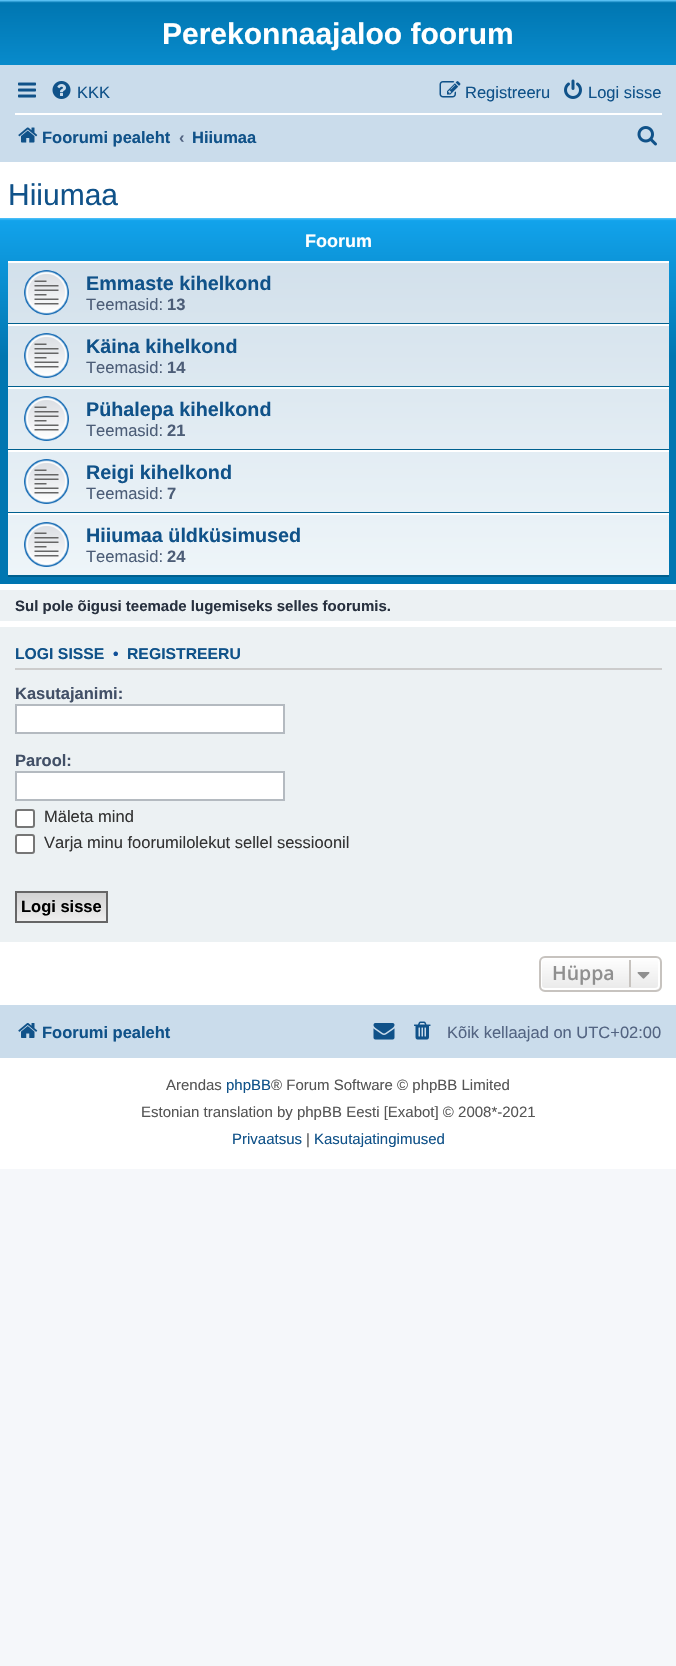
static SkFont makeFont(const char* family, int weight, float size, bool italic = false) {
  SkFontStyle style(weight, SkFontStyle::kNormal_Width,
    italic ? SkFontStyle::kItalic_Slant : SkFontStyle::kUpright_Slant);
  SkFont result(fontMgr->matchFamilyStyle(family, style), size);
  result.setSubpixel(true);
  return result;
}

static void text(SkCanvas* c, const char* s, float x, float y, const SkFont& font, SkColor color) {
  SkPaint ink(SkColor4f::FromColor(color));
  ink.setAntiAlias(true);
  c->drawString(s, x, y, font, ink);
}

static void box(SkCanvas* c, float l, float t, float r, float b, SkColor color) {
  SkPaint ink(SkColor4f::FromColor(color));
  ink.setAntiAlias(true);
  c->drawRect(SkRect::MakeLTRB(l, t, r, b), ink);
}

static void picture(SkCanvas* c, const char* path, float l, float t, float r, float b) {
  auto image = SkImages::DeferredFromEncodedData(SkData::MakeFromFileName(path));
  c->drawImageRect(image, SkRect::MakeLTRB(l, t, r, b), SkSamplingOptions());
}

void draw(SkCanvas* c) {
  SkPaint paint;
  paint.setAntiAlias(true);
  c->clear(0xfff5f7fa);
  box(c, 0, 162, 676, 1169, 0xffffffff);
  {
    const SkColor colors[] = {0xff6aceff, 0xff0076b1, 0xff12a3eb};
    const float stops[] = {0, 0.02f, 1};
    const SkPoint ends[] = {{338, 0}, {338, 138}};
    paint.setShader(SkGradientShader::MakeLinear(ends, colors, stops, 3, SkTileMode::kClamp));
    paint.setAlpha(255);
  }
  c->drawRect(SkRect::MakeLTRB(0, 0, 676, 65), paint);
  SkFont face1 = makeFont("Liberation Sans", 700, 30);
  text(c, "Perekonnaajaloo foorum", 162, 44, face1, 0xffffffff);
  box(c, 0, 65, 676, 162, 0xffcadceb);
  picture(c, "img_01.png", 18, 82, 36, 98);
  picture(c, "img_02.png", 52, 81, 71, 99);
  SkFont face2 = makeFont("Liberation Sans", 400, 16.5f);
  text(c, "KKK", 77, 98, face2, 0xff105289);
  picture(c, "img_03.png", 439, 81, 461, 98);
  text(c, "Registreeru", 465, 98, face2, 0xff105289);
  picture(c, "img_04.png", 564, 79, 582, 99);
  text(c, "Logi sisse", 588, 98, face2, 0xff105289);
  box(c, 15, 113, 662, 115, 0xffffffff);
  picture(c, "img_05.png", 18, 127, 38, 143);
  SkFont face3 = makeFont("Liberation Sans", 700, 16.5f);
  text(c, "Foorumi pealeht", 42, 143, face3, 0xff105289);
  text(c, "‹", 179, 143, face3, 0xff536482);
  text(c, "Hiiumaa", 192, 143, face3, 0xff105289);
  picture(c, "img_06.png", 637, 126, 657, 146);
  SkFont face4 = makeFont("Liberation Sans", 400, 30);
  text(c, "Hiiumaa", 8, 205, face4, 0xff105289);
  {
    const SkColor colors[] = {0xff6aceff, 0xff12a3eb, 0xff0076b1, 0xff0076b1};
    const float stops[] = {0, 0.01f, 0.38f, 1};
    const SkPoint ends[] = {{338, 217}, {338, 584}};
    paint.setShader(SkGradientShader::MakeLinear(ends, colors, stops, 4, SkTileMode::kClamp));
    paint.setAlpha(255);
  }
  c->drawRect(SkRect::MakeLTRB(0, 218, 676, 584), paint);
  SkFont face5 = makeFont("Liberation Sans", 700, 18);
  text(c, "Foorum", 305, 247, face5, 0xffffffff);
  {
    const SkColor colors[] = {0xffd2e0eb, 0xffeef5f9};
    const float stops[] = {0, 1};
    const SkPoint ends[] = {{338, 261}, {338, 576}};
    paint.setShader(SkGradientShader::MakeLinear(ends, colors, stops, 2, SkTileMode::kClamp));
    paint.setAlpha(255);
  }
  c->drawRect(SkRect::MakeLTRB(8, 263, 669, 575), paint);
  box(c, 8, 261, 669, 263, 0xffffffff);
  box(c, 8, 323, 669, 324, 0xff00608f);
  picture(c, "img_07.png", 24, 270, 69, 315);
  SkFont face6 = makeFont("Liberation Sans", 700, 19.75f);
  text(c, "Emmaste kihelkond", 86, 290, face6, 0xff105289);
  text(c, "Teemasid:", 86, 310, face2, 0xff4c5d77);
  text(c, "13", 167, 310, face3, 0xff4c5d77);
  box(c, 8, 324, 669, 326, 0xffffffff);
  box(c, 8, 386, 669, 387, 0xff00608f);
  picture(c, "img_08.png", 24, 333, 69, 378);
  text(c, "Käina kihelkond", 86, 353, face6, 0xff105289);
  text(c, "Teemasid:", 86, 373, face2, 0xff4c5d77);
  text(c, "14", 167, 373, face3, 0xff4c5d77);
  box(c, 8, 387, 669, 389, 0xffffffff);
  box(c, 8, 449, 669, 450, 0xff00608f);
  picture(c, "img_09.png", 24, 396, 69, 441);
  text(c, "Pühalepa kihelkond", 86, 416, face6, 0xff105289);
  text(c, "Teemasid:", 86, 436, face2, 0xff4c5d77);
  text(c, "21", 167, 436, face3, 0xff4c5d77);
  box(c, 8, 450, 669, 452, 0xffffffff);
  box(c, 8, 512, 669, 513, 0xff00608f);
  picture(c, "img_10.png", 24, 459, 69, 504);
  text(c, "Reigi kihelkond", 86, 479, face6, 0xff105289);
  text(c, "Teemasid:", 86, 499, face2, 0xff4c5d77);
  text(c, "7", 167, 499, face3, 0xff4c5d77);
  box(c, 8, 513, 669, 515, 0xffffffff);
  box(c, 8, 575, 669, 577, 0xff00608f);
  picture(c, "img_11.png", 24, 522, 69, 567);
  text(c, "Hiiumaa üldküsimused", 86, 542, face6, 0xff105289);
  text(c, "Teemasid:", 86, 562, face2, 0xff4c5d77);
  text(c, "24", 167, 562, face3, 0xff4c5d77);
  box(c, 0, 590, 676, 621, 0xffecf1f3);
  SkFont face7 = makeFont("Liberation Sans", 700, 15);
  text(c, "Sul pole õigusi teemade lugemiseks selles foorumis.", 15, 611, face7, 0xff28313f);
  box(c, 0, 627, 676, 942, 0xffecf1f3);
  box(c, 15, 668, 662, 670, 0xffcccccc);
  SkFont face8 = makeFont("Liberation Sans", 700, 15.75f);
  text(c, "LOGI SISSE", 15, 659, face8, 0xff105289);
  text(c, "•", 113, 659, face8, 0xff115098);
  text(c, "REGISTREERU", 127, 659, face8, 0xff105289);
  text(c, "Kasutajanimi:", 15, 699, face3, 0xff425067);
  paint.setShader(nullptr);
  paint.setColor(0xffffffff);
  c->drawRect(SkRect::MakeLTRB(16, 705, 284, 733), paint);
  paint.setStyle(SkPaint::kStroke_Style);
  paint.setStrokeWidth(2);
  paint.setColor(0xffb4bac0);
  c->drawRect(SkRect::MakeLTRB(16, 705, 284, 733), paint);
  text(c, "Parool:", 15, 766, face3, 0xff425067);
  paint.setStyle(SkPaint::kFill_Style);
  paint.setColor(0xffffffff);
  c->drawRect(SkRect::MakeLTRB(16, 772, 284, 800), paint);
  paint.setStyle(SkPaint::kStroke_Style);
  paint.setColor(0xffb4bac0);
  c->drawRect(SkRect::MakeLTRB(16, 772, 284, 800), paint);
  paint.setStyle(SkPaint::kFill_Style);
  paint.setColor(0xffffffff);
  c->drawRoundRect(SkRect::MakeLTRB(16, 810, 34, 827), 2, 2, paint);
  paint.setStyle(SkPaint::kStroke_Style);
  paint.setColor(0xff767676);
  c->drawRoundRect(SkRect::MakeLTRB(16, 810, 34, 827), 2, 2, paint);
  text(c, "Mäleta mind", 44, 822, face2, 0xff333333);
  paint.setStyle(SkPaint::kFill_Style);
  paint.setColor(0xffffffff);
  c->drawRoundRect(SkRect::MakeLTRB(16, 835, 34, 853), 2, 2, paint);
  paint.setStyle(SkPaint::kStroke_Style);
  paint.setColor(0xff767676);
  c->drawRoundRect(SkRect::MakeLTRB(16, 835, 34, 853), 2, 2, paint);
  text(c, "Varja minu foorumilolekut sellel sessioonil", 44, 848, face2, 0xff333333);
  paint.setStyle(SkPaint::kFill_Style);
  {
    const SkColor colors[] = {0xffd2d2d2, 0xffefefef};
    const float stops[] = {0, 1};
    const SkPoint ends[] = {{62, 893}, {62, 921}};
    paint.setShader(SkGradientShader::MakeLinear(ends, colors, stops, 2, SkTileMode::kClamp));
    paint.setAlpha(255);
  }
  c->drawRect(SkRect::MakeLTRB(17, 893, 106, 921), paint);
  paint.setStyle(SkPaint::kStroke_Style);
  paint.setShader(nullptr);
  paint.setColor(0xff666666);
  c->drawRect(SkRect::MakeLTRB(16, 892, 107, 922), paint);
  text(c, "Logi sisse", 21, 912, face3, 0xff000000);
  c->save();
  c->clipPath(SkPathBuilder().moveTo(545, 956).lineTo(656, 956).cubicTo(659.5f, 956, 662, 958.5f, 662, 962).lineTo(662, 986).cubicTo(662, 989.5f, 659.5f, 992, 656, 992).lineTo(545, 992).cubicTo(541.5f, 992, 539, 989.5f, 539, 986).lineTo(539, 962).cubicTo(539, 958.5f, 541.5f, 956, 545, 956).close().detach(), true);
  paint.setStyle(SkPaint::kFill_Style);
  {
    const SkColor colors[] = {0xffffffff, 0xffe9e9e9};
    const float stops[] = {0, 1};
    const SkPoint ends[] = {{600, 957}, {600, 990}};
    paint.setShader(SkGradientShader::MakeLinear(ends, colors, stops, 2, SkTileMode::kClamp));
    paint.setAlpha(255);
  }
  c->drawRect(SkRect::MakeLTRB(539, 957, 662, 990), paint);
  c->restore();
  paint.setStyle(SkPaint::kStroke_Style);
  paint.setShader(nullptr);
  paint.setColor(0xffffffff);
  c->drawRoundRect(SkRect::MakeLTRB(541, 958, 659, 989), 4, 4, paint);
  paint.setColor(0xffc7c3bf);
  c->drawRoundRect(SkRect::MakeLTRB(540, 957, 661, 991), 5, 5, paint);
  SkFont face9 = makeFont("Open Sans", 600, 19.5f);
  text(c, "Hüppa", 552, 980, face9, 0xff8f8f8f);
  box(c, 629, 960, 631, 987, 0xffc7c3bf);
  picture(c, "img_12.png", 637, 972, 650, 979);
  box(c, 0, 1005, 676, 1058, 0xffcadceb);
  picture(c, "img_13.png", 18, 1023, 38, 1038);
  text(c, "Foorumi pealeht", 42, 1038, face3, 0xff105289);
  picture(c, "img_14.png", 373, 1023, 395, 1040);
  picture(c, "img_15.png", 414, 1021, 431, 1040);
  text(c, "Kõik kellaajad on UTC+02:00", 447, 1038, face2, 0xff536482);
  SkFont face10 = makeFont("Liberation Sans", 400, 15);
  text(c, "Arendas", 166, 1090, face10, 0xff555555);
  text(c, "phpBB", 226, 1090, face10, 0xff105289);
  text(c, "® Forum Software © phpBB Limited", 271, 1090, face10, 0xff555555);
  text(c, "Estonian translation by phpBB Eesti [Exabot] © 2008*-2021", 141, 1117, face10, 0xff555555);
  text(c, "Privaatsus", 232, 1144, face10, 0xff105289);
  text(c, "|", 306, 1144, face10, 0xff555555);
  text(c, "Kasutajatingimused", 314, 1144, face10, 0xff105289);
}
